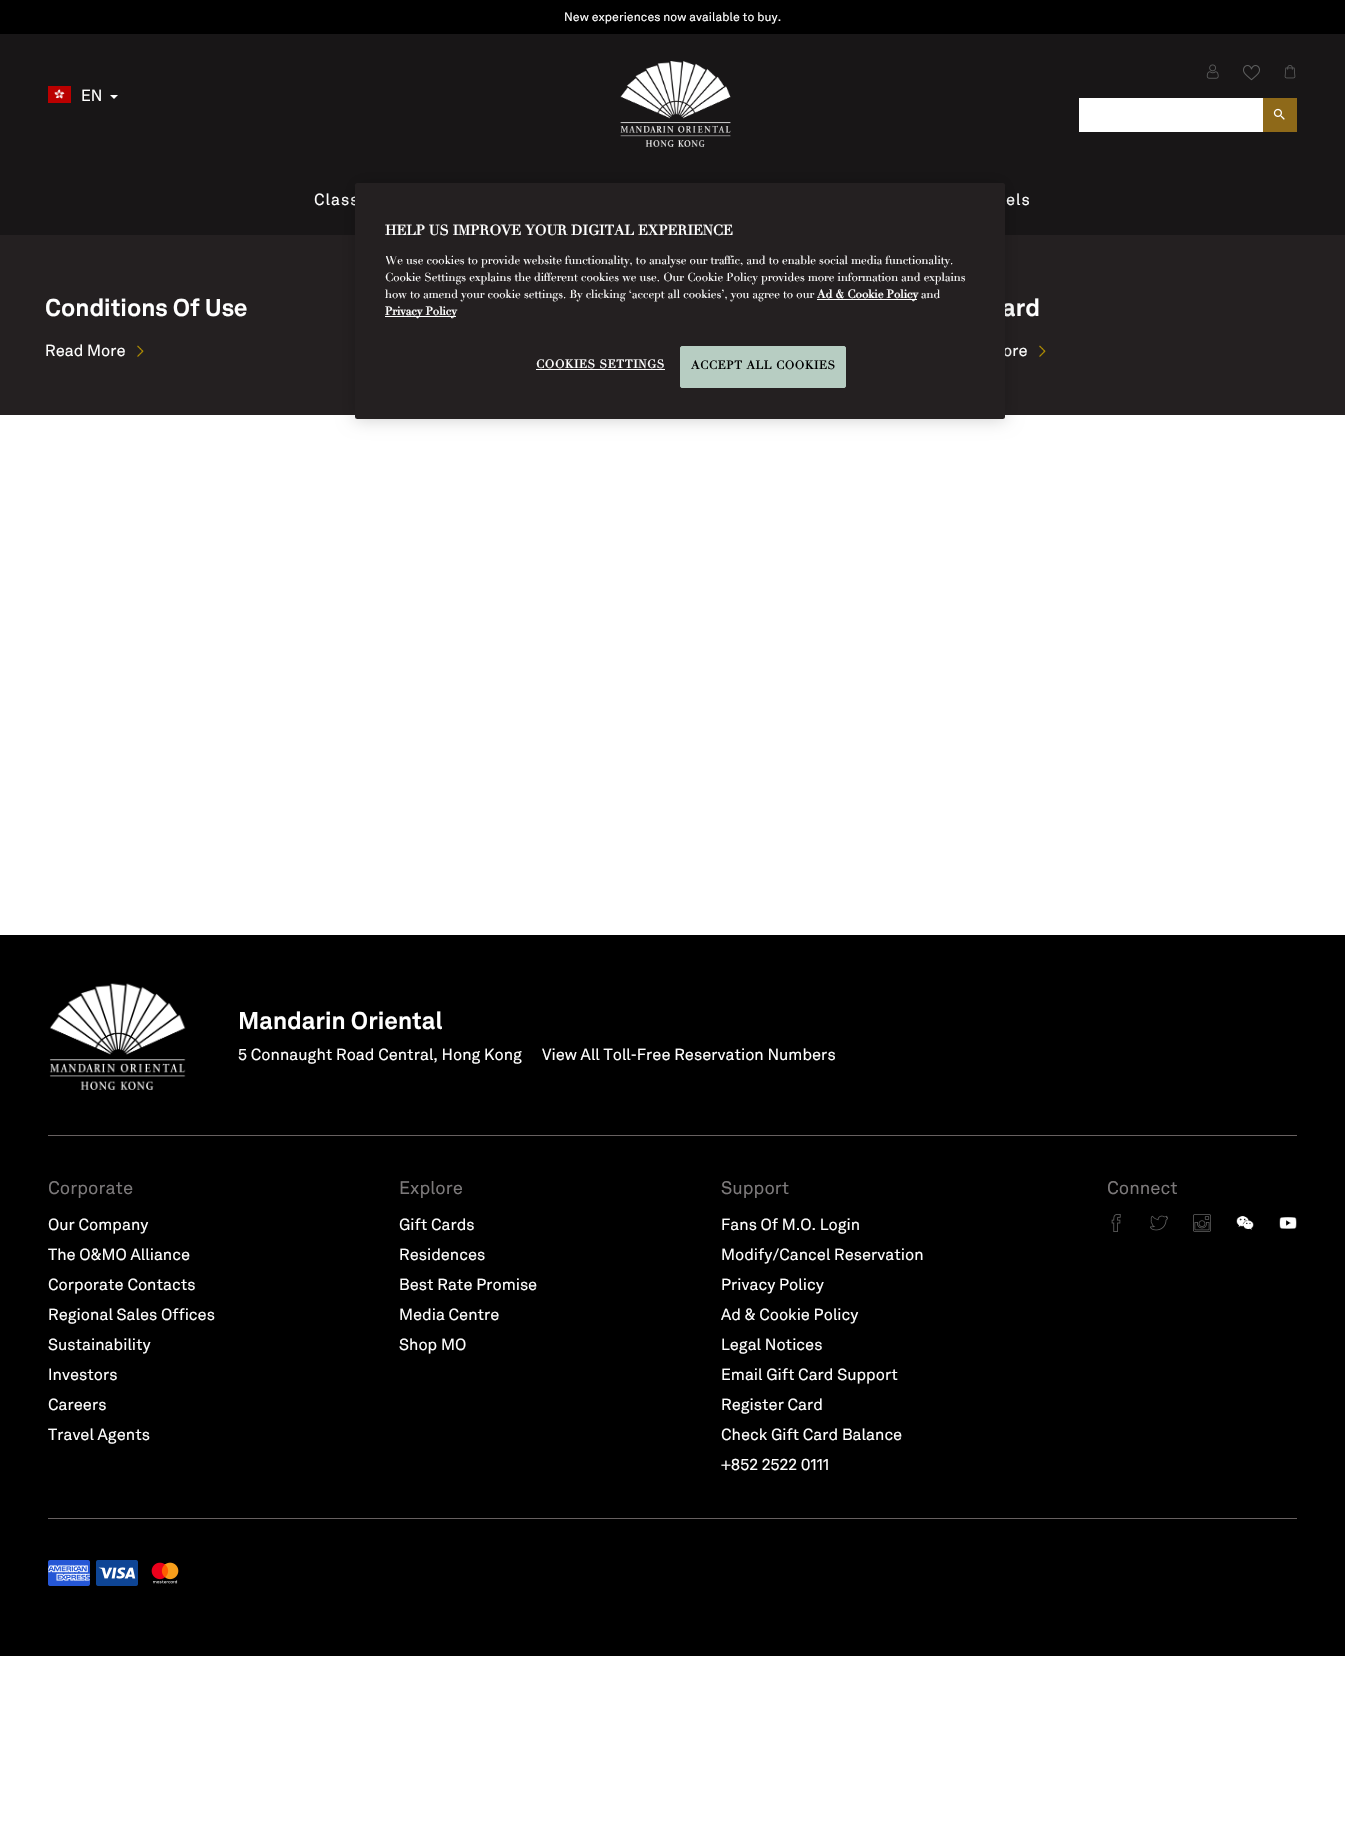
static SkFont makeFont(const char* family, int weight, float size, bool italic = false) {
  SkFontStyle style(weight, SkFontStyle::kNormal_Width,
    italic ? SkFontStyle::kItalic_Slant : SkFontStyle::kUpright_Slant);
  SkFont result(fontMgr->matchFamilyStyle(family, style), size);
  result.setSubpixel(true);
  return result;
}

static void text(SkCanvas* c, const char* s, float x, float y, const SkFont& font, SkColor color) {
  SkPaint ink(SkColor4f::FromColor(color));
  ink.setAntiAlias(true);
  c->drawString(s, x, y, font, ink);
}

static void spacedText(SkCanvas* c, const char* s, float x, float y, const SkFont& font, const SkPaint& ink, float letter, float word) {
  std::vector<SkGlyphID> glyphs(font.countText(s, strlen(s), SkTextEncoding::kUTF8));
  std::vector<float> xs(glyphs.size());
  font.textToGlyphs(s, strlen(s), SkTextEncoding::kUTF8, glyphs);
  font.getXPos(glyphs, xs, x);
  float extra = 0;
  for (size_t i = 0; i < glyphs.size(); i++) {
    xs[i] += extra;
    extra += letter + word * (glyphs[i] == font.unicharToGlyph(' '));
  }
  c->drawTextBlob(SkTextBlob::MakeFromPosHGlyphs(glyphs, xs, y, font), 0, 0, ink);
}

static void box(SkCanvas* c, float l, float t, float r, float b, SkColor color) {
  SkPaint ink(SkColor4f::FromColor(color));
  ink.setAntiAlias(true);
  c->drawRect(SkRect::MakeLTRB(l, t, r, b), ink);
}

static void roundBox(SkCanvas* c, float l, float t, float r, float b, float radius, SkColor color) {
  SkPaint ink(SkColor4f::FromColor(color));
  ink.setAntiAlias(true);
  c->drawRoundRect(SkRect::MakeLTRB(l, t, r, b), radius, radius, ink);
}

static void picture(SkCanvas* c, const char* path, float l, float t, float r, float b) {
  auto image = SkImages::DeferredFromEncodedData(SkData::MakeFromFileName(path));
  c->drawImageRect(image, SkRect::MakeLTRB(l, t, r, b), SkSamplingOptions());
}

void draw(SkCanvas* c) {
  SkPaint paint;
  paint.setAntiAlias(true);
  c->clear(0xffffffff);
  box(c, 0, 0, 1345, 34, 0xff000000);
  SkFont face1 = makeFont("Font", 400, 12);
  paint.setColor(0xffffffff);
  spacedText(c, "New experiences now available to buy.", 564, 21, face1, paint, 0.05f, 0);
  box(c, 0, 34, 1345, 235, 0xff181617);
  picture(c, "img_01.png", 48, 86, 71, 103);
  SkFont face2 = makeFont("Font", 400, 16);
  text(c, "EN", 81, 101, face2, 0xffffffff);
  c->drawPath(SkPathBuilder().moveTo(110, 95).lineTo(118, 95).lineTo(114, 99).close().detach(), paint);
  picture(c, "img_02.png", 620, 61, 731, 147);
  picture(c, "img_03.png", 1206, 64, 1219, 79);
  picture(c, "img_04.png", 1243, 65, 1260, 81);
  picture(c, "img_05.png", 1284, 65, 1296, 79);
  box(c, 1079, 98, 1263, 132, 0xffffffff);
  box(c, 1263, 98, 1297, 132, 0xff8e6919);
  picture(c, "img_06.png", 1273, 108, 1285, 120);
  spacedText(c, "Class", 314, 205, face2, paint, 1, 0);
  spacedText(c, "els", 1006, 205, face2, paint, 1, 0);
  box(c, 0, 235, 1345, 415, 0xff242021);
  SkFont face3 = makeFont("Font", 700, 24);
  text(c, "Conditions Of Use", 45, 316, face3, 0xffffffff);
  text(c, "Read More", 45, 356, face2, 0xffffffff);
  picture(c, "img_07.png", 137, 345, 144, 357);
  text(c, "ard", 1002, 316, face3, 0xffffffff);
  text(c, "ore", 1003, 356, face2, 0xffffffff);
  picture(c, "img_08.png", 1039, 345, 1046, 357);
  box(c, 0, 935, 1345, 1656, 0xff000000);
  box(c, 48, 1135, 1297, 1136, 0xff676060);
  picture(c, "img_09.png", 49, 983, 186, 1090);
  text(c, "Mandarin Oriental", 238, 1029, face3, 0xffffffff);
  text(c, "5 Connaught Road Central, Hong Kong", 238, 1060, face2, 0xffffffff);
  text(c, "View All Toll-Free Reservation Numbers", 542, 1060, face2, 0xffffffff);
  box(c, 48, 1518, 1297, 1519, 0xff676060);
  SkFont face4 = makeFont("Font", 400, 18);
  text(c, "Corporate", 48, 1194, face4, 0xff7c797a);
  text(c, "Our Company", 48, 1230, face2, 0xffffffff);
  text(c, "The O&MO Alliance", 48, 1260, face2, 0xffffffff);
  text(c, "Corporate Contacts", 48, 1290, face2, 0xffffffff);
  text(c, "Regional Sales Offices", 48, 1320, face2, 0xffffffff);
  text(c, "Sustainability", 48, 1350, face2, 0xffffffff);
  text(c, "Investors", 48, 1380, face2, 0xffffffff);
  text(c, "Careers", 48, 1410, face2, 0xffffffff);
  text(c, "Travel Agents", 48, 1440, face2, 0xffffffff);
  text(c, "Explore", 399, 1194, face4, 0xff7c797a);
  text(c, "Gift Cards", 399, 1230, face2, 0xffffffff);
  text(c, "Residences", 399, 1260, face2, 0xffffffff);
  text(c, "Best Rate Promise", 399, 1290, face2, 0xffffffff);
  text(c, "Media Centre", 399, 1320, face2, 0xffffffff);
  text(c, "Shop MO", 399, 1350, face2, 0xffffffff);
  text(c, "Support", 721, 1194, face4, 0xff7c797a);
  text(c, "Fans Of M.O. Login", 721, 1230, face2, 0xffffffff);
  text(c, "Modify/Cancel Reservation", 721, 1260, face2, 0xffffffff);
  text(c, "Privacy Policy", 721, 1290, face2, 0xffffffff);
  text(c, "Ad & Cookie Policy", 721, 1320, face2, 0xffffffff);
  text(c, "Legal Notices", 721, 1350, face2, 0xffffffff);
  text(c, "Email Gift Card Support", 721, 1380, face2, 0xffffffff);
  text(c, "Register Card", 721, 1410, face2, 0xffffffff);
  text(c, "Check Gift Card Balance", 721, 1440, face2, 0xffffffff);
  text(c, "+852 2522 0111", 721, 1470, face2, 0xffffffff);
  text(c, "Connect", 1107, 1194, face4, 0xff7c797a);
  picture(c, "img_10.png", 1111, 1214, 1121, 1232);
  picture(c, "img_11.png", 1150, 1215, 1168, 1231);
  picture(c, "img_12.png", 1193, 1214, 1211, 1232);
  picture(c, "img_13.png", 1236, 1216, 1254, 1230);
  picture(c, "img_14.png", 1279, 1217, 1297, 1229);
  picture(c, "img_15.png", 48, 1560, 90, 1586);
  picture(c, "img_16.png", 96, 1560, 138, 1586);
  picture(c, "img_17.png", 151, 1562, 179, 1584);
  paint.setColor(0x33000000);
  paint.setMaskFilter(SkMaskFilter::MakeBlur(kNormal_SkBlurStyle, 9));
  c->drawRoundRect(SkRect::MakeLTRB(355, 183, 1005, 419), 2.5f, 2.5f, paint);
  paint.setMaskFilter(nullptr);
  roundBox(c, 355, 183, 1005, 419, 2.5f, 0xff242021);
  SkFont face5 = makeFont("Didot", 700, 14);
  text(c, "HELP US IMPROVE YOUR DIGITAL EXPERIENCE", 385, 235, face5, 0xffffffff);
  SkFont face6 = makeFont("Didot", 400, 11.38f);
  text(c, "We use cookies to provide website functionality, to analyse our traffic, and to enable social media functionality.", 385, 264, face6, 0xffffffff);
  text(c, "Cookie Settings explains the different cookies we use. Our Cookie Policy provides more information and explains", 385, 281, face6, 0xffffffff);
  text(c, "how to amend your cookie settings. By clicking ‘accept all cookies’, you agree to our", 385, 298, face6, 0xffffffff);
  box(c, 817, 299, 917, 300, 0xffffffff);
  SkFont face7 = makeFont("Didot", 700, 11.38f);
  text(c, "Ad & Cookie Policy", 817, 298, face7, 0xffffffff);
  text(c, "and", 921, 298, face6, 0xffffffff);
  box(c, 385, 316, 456, 317, 0xffffffff);
  text(c, "Privacy Policy", 385, 315, face7, 0xffffffff);
  paint.setColor(0xffffffff);
  spacedText(c, "COOKIES SETTINGS", 536, 368, face7, paint, 0.6f, 0);
  box(c, 536, 369, 665, 370, 0xffffffff);
  paint.setColor(0xffb7cdc2);
  c->drawRoundRect(SkRect::MakeLTRB(680.5f, 346.5f, 845.5f, 387.5f), 1.5f, 1.5f, paint);
  paint.setStyle(SkPaint::kStroke_Style);
  paint.setStrokeWidth(1);
  c->drawRoundRect(SkRect::MakeLTRB(680.5f, 346.5f, 845.5f, 387.5f), 1.5f, 1.5f, paint);
  paint.setStyle(SkPaint::kFill_Style);
  paint.setColor(0xff000000);
  spacedText(c, "ACCEPT ALL COOKIES", 691, 369, face7, paint, 0.6f, 0);
}
